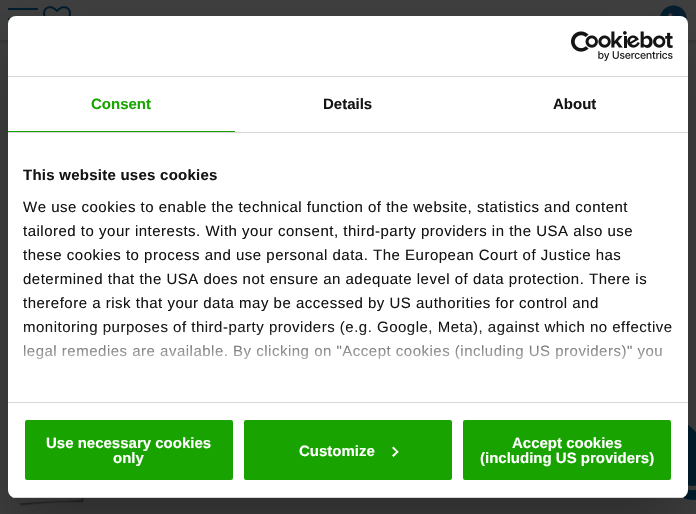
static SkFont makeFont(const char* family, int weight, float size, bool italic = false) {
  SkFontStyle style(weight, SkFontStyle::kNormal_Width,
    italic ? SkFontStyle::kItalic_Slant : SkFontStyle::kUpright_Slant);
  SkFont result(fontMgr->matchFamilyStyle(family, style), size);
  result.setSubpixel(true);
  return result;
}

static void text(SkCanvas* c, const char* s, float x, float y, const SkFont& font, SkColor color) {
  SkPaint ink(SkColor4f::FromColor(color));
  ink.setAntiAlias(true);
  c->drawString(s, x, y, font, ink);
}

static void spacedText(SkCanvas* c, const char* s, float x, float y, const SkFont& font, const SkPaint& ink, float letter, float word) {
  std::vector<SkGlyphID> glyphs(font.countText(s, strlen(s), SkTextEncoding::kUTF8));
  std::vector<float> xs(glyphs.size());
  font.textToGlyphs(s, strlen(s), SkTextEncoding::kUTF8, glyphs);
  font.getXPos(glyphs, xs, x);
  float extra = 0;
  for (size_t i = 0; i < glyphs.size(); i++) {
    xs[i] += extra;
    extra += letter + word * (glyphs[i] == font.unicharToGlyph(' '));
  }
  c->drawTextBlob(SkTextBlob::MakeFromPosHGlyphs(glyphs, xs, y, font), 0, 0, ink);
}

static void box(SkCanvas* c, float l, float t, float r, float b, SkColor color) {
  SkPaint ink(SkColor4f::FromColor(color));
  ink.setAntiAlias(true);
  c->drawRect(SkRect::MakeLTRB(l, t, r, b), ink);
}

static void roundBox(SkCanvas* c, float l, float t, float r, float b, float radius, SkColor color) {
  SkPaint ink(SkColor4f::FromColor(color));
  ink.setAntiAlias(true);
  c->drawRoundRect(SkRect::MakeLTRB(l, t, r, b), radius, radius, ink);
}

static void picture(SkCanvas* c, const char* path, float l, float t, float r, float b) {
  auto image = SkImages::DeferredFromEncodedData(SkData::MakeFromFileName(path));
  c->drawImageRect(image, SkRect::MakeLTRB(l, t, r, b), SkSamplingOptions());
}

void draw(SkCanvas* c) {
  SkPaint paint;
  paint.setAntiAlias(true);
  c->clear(0xff404040);
  paint.setColor(0x33000000);
  paint.setMaskFilter(SkMaskFilter::MakeBlur(kNormal_SkBlurStyle, 2.5f));
  c->drawRect(SkRect::MakeLTRB(-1, -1, 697, 41), paint);
  paint.setMaskFilter(nullptr);
  box(c, 0, 0, 696, 40, 0xff404040);
  box(c, 8, 8, 38, 10, 0xff001d2e);
  box(c, 8, 18, 11, 20, 0xff001d2e);
  picture(c, "img_01.png", 43, 6, 71, 16);
  picture(c, "img_02.png", 660, 5, 687, 21);
  picture(c, "img_03.png", 681, 425, 696, 500);
  picture(c, "img_04.png", 17, 498, 84, 506);
  paint.setColor(0x4d000000);
  paint.setMaskFilter(SkMaskFilter::MakeBlur(kNormal_SkBlurStyle, 34));
  c->drawRoundRect(SkRect::MakeLTRB(8, 48, 688, 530), 8, 8, paint);
  paint.setMaskFilter(nullptr);
  roundBox(c, 8, 16, 688, 498, 8, 0xffffffff);
  box(c, 8, 76, 688, 77, 0xffd6d6d6);
  picture(c, "img_05.png", 571, 31, 673, 61);
  box(c, 8, 132, 688, 133, 0xffd6d6d6);
  box(c, 8, 131, 235, 132, 0xff18a300);
  SkFont face1 = makeFont("Liberation Sans", 700, 15);
  text(c, "Consent", 91, 109, face1, 0xff18a300);
  text(c, "Details", 323, 109, face1, 0xff141414);
  text(c, "About", 553, 109, face1, 0xff141414);
  box(c, 8, 402, 688, 403, 0xffd6d6d6);
  paint.setColor(0xff141414);
  spacedText(c, "This website uses cookies", 23, 180, face1, paint, 0.25f, 0);
  SkFont face2 = makeFont("Liberation Sans", 400, 15);
  spacedText(c, "We use cookies to enable the technical function of the website, statistics and content", 23, 212, face2, paint, 0.5f, 0);
  spacedText(c, "tailored to your interests. With your consent, third-party providers in the USA also use", 23, 236, face2, paint, 0.5f, 0);
  spacedText(c, "these cookies to process and use personal data. The European Court of Justice has", 23, 260, face2, paint, 0.5f, 0);
  spacedText(c, "determined that the USA does not ensure an adequate level of data protection. There is", 23, 284, face2, paint, 0.5f, 0);
  spacedText(c, "therefore a risk that your data may be accessed by US authorities for control and", 23, 308, face2, paint, 0.5f, 0);
  spacedText(c, "monitoring purposes of third-party providers (e.g. Google, Meta), against which no effective", 23, 332, face2, paint, 0.5f, 0);
  spacedText(c, "legal remedies are available. By clicking on \"Accept cookies (including US providers)\" you", 23, 356, face2, paint, 0.5f, 0);
  {
    const SkColor colors[] = {0xffffffff, 0xccffffff, 0x00ffffff};
    const float stops[] = {0, 0.5f, 1};
    const SkPoint ends[] = {{342, 402}, {342, 327}};
    paint.setShader(SkGradientShader::MakeLinear(ends, colors, stops, 3, SkTileMode::kClamp));
    paint.setAlpha(255);
  }
  c->drawRect(SkRect::MakeLTRB(24, 328, 671, 360), paint);
  c->save();
  c->clipPath(SkPathBuilder().moveTo(16, 16).lineTo(680, 16).cubicTo(684.5f, 16, 688, 19.5f, 688, 24).lineTo(688, 490).cubicTo(688, 494.5f, 684.5f, 498, 680, 498).lineTo(16, 498).cubicTo(11.5f, 498, 8, 494.5f, 8, 490).lineTo(8, 24).cubicTo(8, 19.5f, 11.5f, 16, 16, 16).close().detach(), true);
  box(c, 8, 497, 688, 498, 0xffd6d6d6);
  c->restore();
  paint.setShader(nullptr);
  paint.setColor(0xff18a300);
  c->drawRoundRect(SkRect::MakeLTRB(24, 419, 234, 481), 3, 3, paint);
  paint.setStyle(SkPaint::kStroke_Style);
  paint.setStrokeWidth(2);
  paint.setColor(0xffffffff);
  c->drawRoundRect(SkRect::MakeLTRB(24, 419, 234, 481), 3, 3, paint);
  text(c, "Use necessary cookies", 46, 448, face1, 0xffffffff);
  text(c, "only", 113, 463, face1, 0xffffffff);
  paint.setStyle(SkPaint::kFill_Style);
  paint.setColor(0xff18a300);
  c->drawRoundRect(SkRect::MakeLTRB(243, 419, 453, 481), 3, 3, paint);
  paint.setStyle(SkPaint::kStroke_Style);
  paint.setColor(0xffffffff);
  c->drawRoundRect(SkRect::MakeLTRB(243, 419, 453, 481), 3, 3, paint);
  text(c, "Customize", 299, 456, face1, 0xffffffff);
  paint.setStyle(SkPaint::kFill_Style);
  c->drawPath(SkPathBuilder().moveTo(393.5f, 446.5f).lineTo(398.5f, 452).lineTo(397.5f, 453).lineTo(392, 448).close().detach(), paint);
  c->drawPath(SkPathBuilder().moveTo(397.5f, 450.5f).lineTo(398.5f, 452).lineTo(393.5f, 457).lineTo(392, 455.5f).close().detach(), paint);
  paint.setColor(0xff18a300);
  c->drawRoundRect(SkRect::MakeLTRB(462, 419, 672, 481), 3, 3, paint);
  paint.setStyle(SkPaint::kStroke_Style);
  paint.setColor(0xffffffff);
  c->drawRoundRect(SkRect::MakeLTRB(462, 419, 672, 481), 3, 3, paint);
  text(c, "Accept cookies", 512, 448, face1, 0xffffffff);
  text(c, "(including US providers)", 480, 463, face1, 0xffffffff);
}
